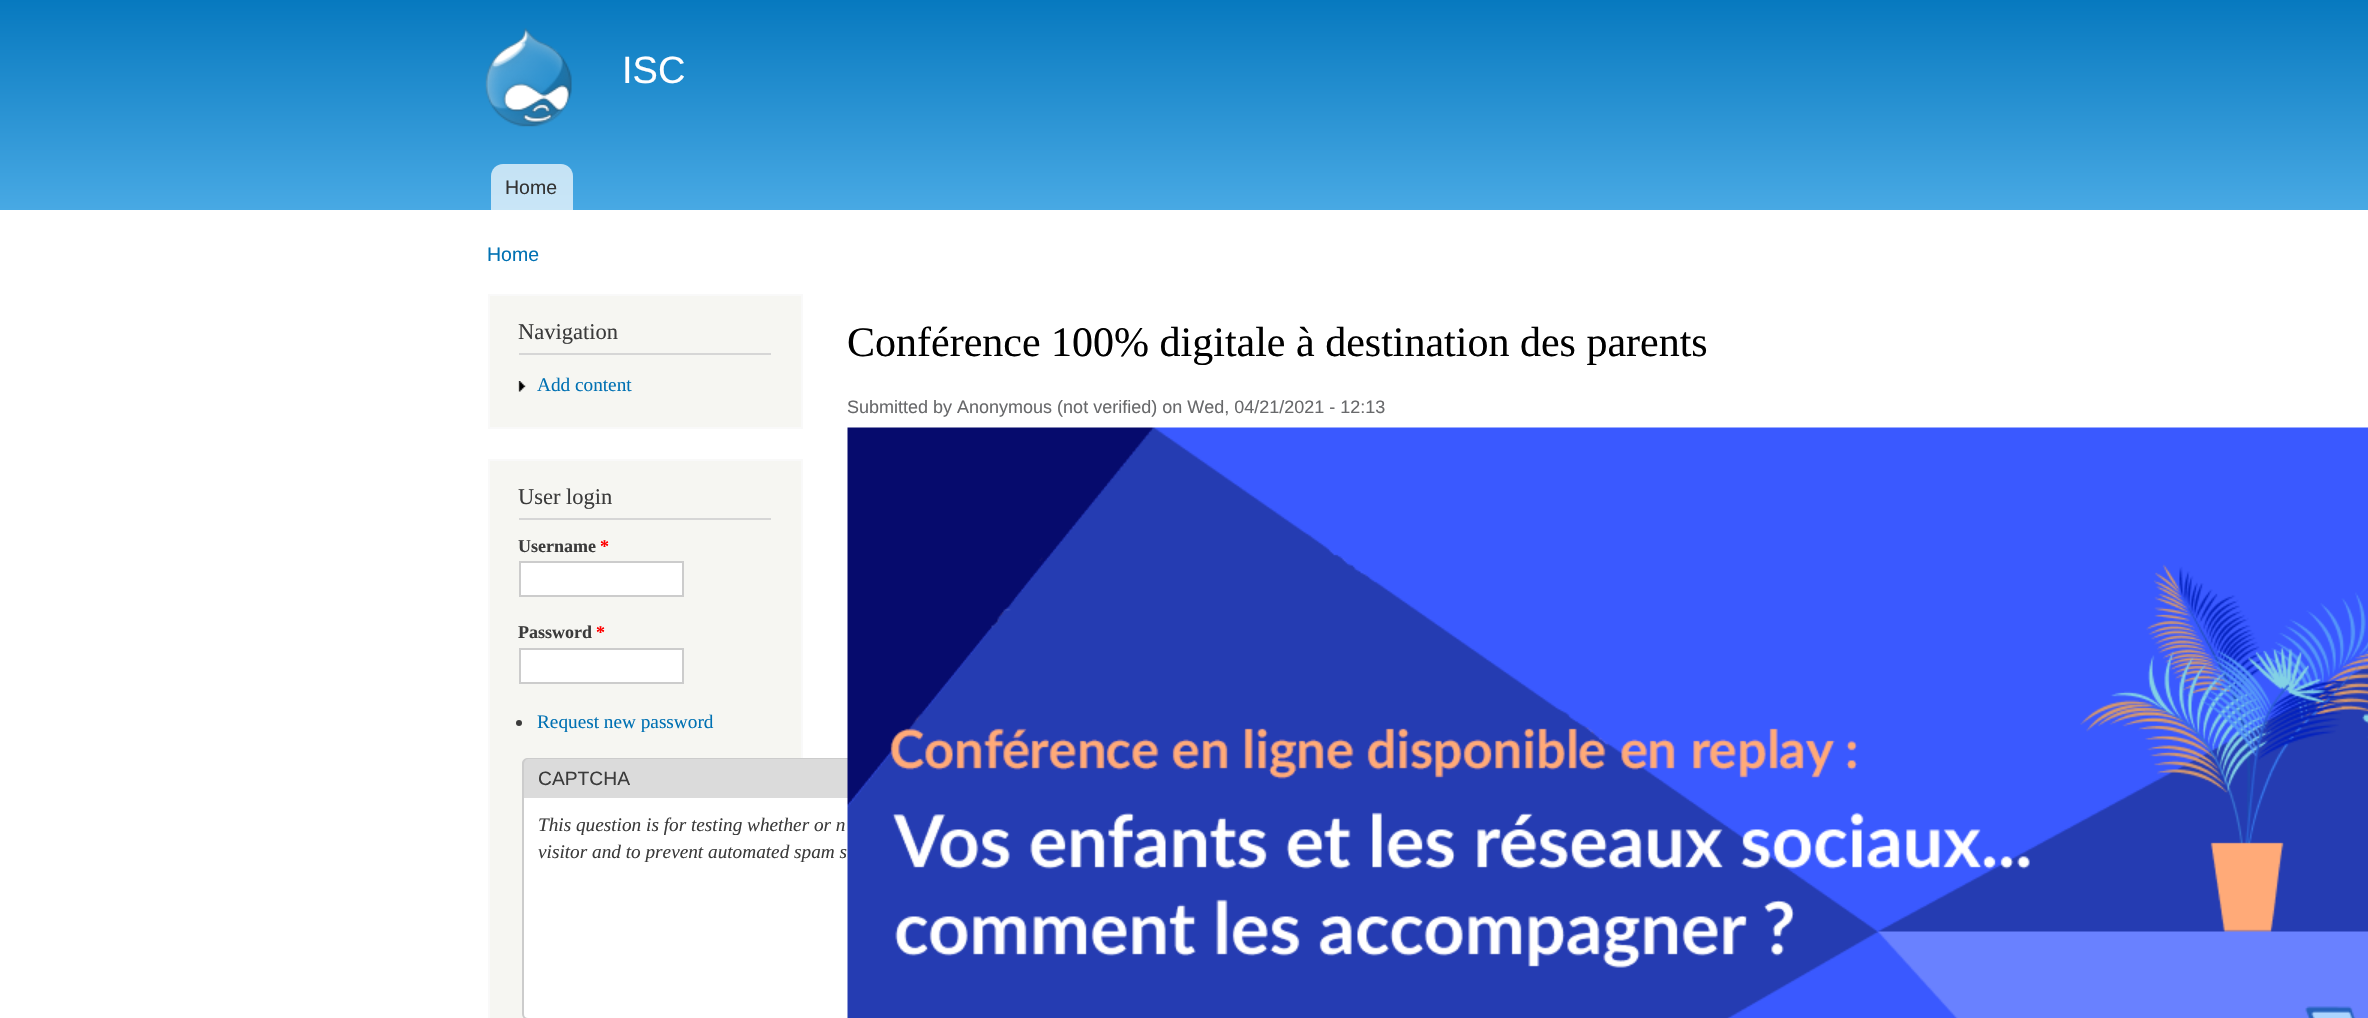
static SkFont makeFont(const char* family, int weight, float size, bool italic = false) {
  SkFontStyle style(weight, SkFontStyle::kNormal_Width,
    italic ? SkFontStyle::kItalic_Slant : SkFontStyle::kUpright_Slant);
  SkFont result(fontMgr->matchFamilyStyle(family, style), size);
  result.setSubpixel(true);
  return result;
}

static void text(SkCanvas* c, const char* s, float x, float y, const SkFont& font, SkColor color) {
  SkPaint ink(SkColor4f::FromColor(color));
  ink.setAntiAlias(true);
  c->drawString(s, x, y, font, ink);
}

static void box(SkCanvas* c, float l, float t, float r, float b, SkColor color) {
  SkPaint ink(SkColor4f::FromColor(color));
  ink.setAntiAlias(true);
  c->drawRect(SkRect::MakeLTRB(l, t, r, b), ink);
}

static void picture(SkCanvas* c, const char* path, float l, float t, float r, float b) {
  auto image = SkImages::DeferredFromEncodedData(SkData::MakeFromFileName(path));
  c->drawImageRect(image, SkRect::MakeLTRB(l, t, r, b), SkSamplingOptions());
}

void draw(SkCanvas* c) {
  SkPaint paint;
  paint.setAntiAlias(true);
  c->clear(0xffffffff);
  {
    const SkColor colors[] = {0xff0779bf, 0xff48a9e4};
    const float stops[] = {0, 1};
    const SkPoint ends[] = {{1184, 0}, {1184, 210}};
    paint.setShader(SkGradientShader::MakeLinear(ends, colors, stops, 2, SkTileMode::kClamp));
    paint.setAlpha(255);
  }
  c->drawRect(SkRect::MakeLTRB(0, 0, 2368, 210), paint);
  picture(c, "img_01.png", 485, 28, 572, 127);
  SkFont face1 = makeFont("Liberation Sans", 400, 38);
  text(c, "ISC", 622, 83, face1, 0xfffffeff);
  paint.setShader(nullptr);
  paint.setColor(0xb3ffffff);
  c->drawPath(SkPathBuilder().moveTo(503, 164).lineTo(561, 164).cubicTo(567.5f, 164, 573, 169.5f, 573, 176).lineTo(573, 210).lineTo(491, 210).lineTo(491, 176).cubicTo(491, 169.5f, 496.5f, 164, 503, 164).close().detach(), paint);
  SkFont face2 = makeFont("Liberation Sans", 400, 19.5f);
  text(c, "Home", 505, 194, face2, 0xff333333);
  text(c, "Home", 487, 261, face2, 0xff0071b3);
  paint.setColor(0xfff6f6f2);
  c->drawRect(SkRect::MakeLTRB(489, 295, 802, 428), paint);
  paint.setStyle(SkPaint::kStroke_Style);
  paint.setStrokeWidth(2);
  paint.setColor(0xfff9f9f9);
  c->drawRect(SkRect::MakeLTRB(489, 295, 802, 428), paint);
  box(c, 519, 353, 771, 355, 0xffd6d6d6);
  SkFont face3 = makeFont("Liberation Serif", 400, 22.5f);
  text(c, "Navigation", 518, 339, face3, 0xff3b3b3b);
  picture(c, "img_02.png", 518, 381, 526, 392);
  SkFont face4 = makeFont("Liberation Serif", 400, 19.25f);
  text(c, "Add content", 537, 391, face4, 0xff0071b3);
  paint.setStyle(SkPaint::kFill_Style);
  paint.setColor(0xfff6f6f2);
  c->drawRect(SkRect::MakeLTRB(489, 460, 802, 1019), paint);
  paint.setStyle(SkPaint::kStroke_Style);
  paint.setColor(0xfff9f9f9);
  c->drawRect(SkRect::MakeLTRB(489, 460, 802, 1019), paint);
  box(c, 519, 518, 771, 520, 0xffd6d6d6);
  text(c, "User login", 518, 504, face3, 0xff3b3b3b);
  SkFont face5 = makeFont("Liberation Serif", 700, 18);
  text(c, "Username", 518, 552, face5, 0xff3b3b3b);
  text(c, "*", 600, 552, face5, 0xffff0000);
  paint.setStyle(SkPaint::kFill_Style);
  paint.setColor(0xffffffff);
  c->drawRect(SkRect::MakeLTRB(520, 562, 683, 596), paint);
  paint.setStyle(SkPaint::kStroke_Style);
  paint.setColor(0xffcccccc);
  c->drawRect(SkRect::MakeLTRB(520, 562, 683, 596), paint);
  text(c, "Password", 518, 638, face5, 0xff3b3b3b);
  text(c, "*", 596, 638, face5, 0xffff0000);
  paint.setStyle(SkPaint::kFill_Style);
  paint.setColor(0xffffffff);
  c->drawRect(SkRect::MakeLTRB(520, 649, 683, 683), paint);
  paint.setStyle(SkPaint::kStroke_Style);
  paint.setColor(0xffcccccc);
  c->drawRect(SkRect::MakeLTRB(520, 649, 683, 683), paint);
  paint.setStyle(SkPaint::kFill_Style);
  paint.setColor(0xff3b3b3b);
  c->drawCircle(519, 723, 3, paint);
  text(c, "Request new password", 537, 728, face4, 0xff0071b3);
  paint.setColor(0xffffffff);
  c->drawRoundRect(SkRect::MakeLTRB(523, 775, 1010, 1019), 5, 5, paint);
  paint.setStyle(SkPaint::kStroke_Style);
  paint.setColor(0xffcccccc);
  c->drawRoundRect(SkRect::MakeLTRB(523, 775, 1010, 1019), 5, 5, paint);
  paint.setStyle(SkPaint::kFill_Style);
  paint.setColor(0xffdbdbdb);
  c->drawPath(SkPathBuilder().moveTo(528, 758).lineTo(1005, 758).cubicTo(1008.5f, 758, 1011, 760.5f, 1011, 764).lineTo(1011, 798).lineTo(522, 798).lineTo(522, 764).cubicTo(522, 760.5f, 524.5f, 758, 528, 758).close().detach(), paint);
  paint.setColor(0xffcccccc);
  c->drawPath(SkPathBuilder(SkPathFillType::kEvenOdd).moveTo(528, 758).lineTo(1005, 758).cubicTo(1008, 758, 1011, 760, 1011, 764).lineTo(1011, 798).lineTo(522, 798).lineTo(522, 764).cubicTo(522, 760, 525, 758, 528, 758).close().moveTo(528, 759).lineTo(1005, 759).cubicTo(1007, 759, 1010, 761, 1010, 764).lineTo(1010, 798).lineTo(524, 798).lineTo(524, 764).cubicTo(524, 761, 526, 759, 528, 759).close().detach(), paint);
  SkFont face6 = makeFont("Liberation Sans", 400, 19.25f);
  text(c, "CAPTCHA", 538, 785, face6, 0xff3b3b3b);
  SkFont face7 = makeFont("Liberation Serif", 400, 19.25f, true);
  text(c, "This question is for testing whether or n", 538, 831, face7, 0xff3b3b3b);
  text(c, "visitor and to prevent automated spam s", 538, 858, face7, 0xff3b3b3b);
  SkFont face8 = makeFont("Liberation Serif", 400, 42);
  text(c, "Conférence 100% digitale à destination des parents", 847, 356, face8, 0xff000000);
  SkFont face9 = makeFont("Liberation Sans", 400, 18);
  text(c, "Submitted by Anonymous (not verified) on Wed, 04/21/2021 - 12:13", 847, 413, face9, 0xff68696b);
  picture(c, "img_03.png", 847, 427, 2368, 1018);
}
